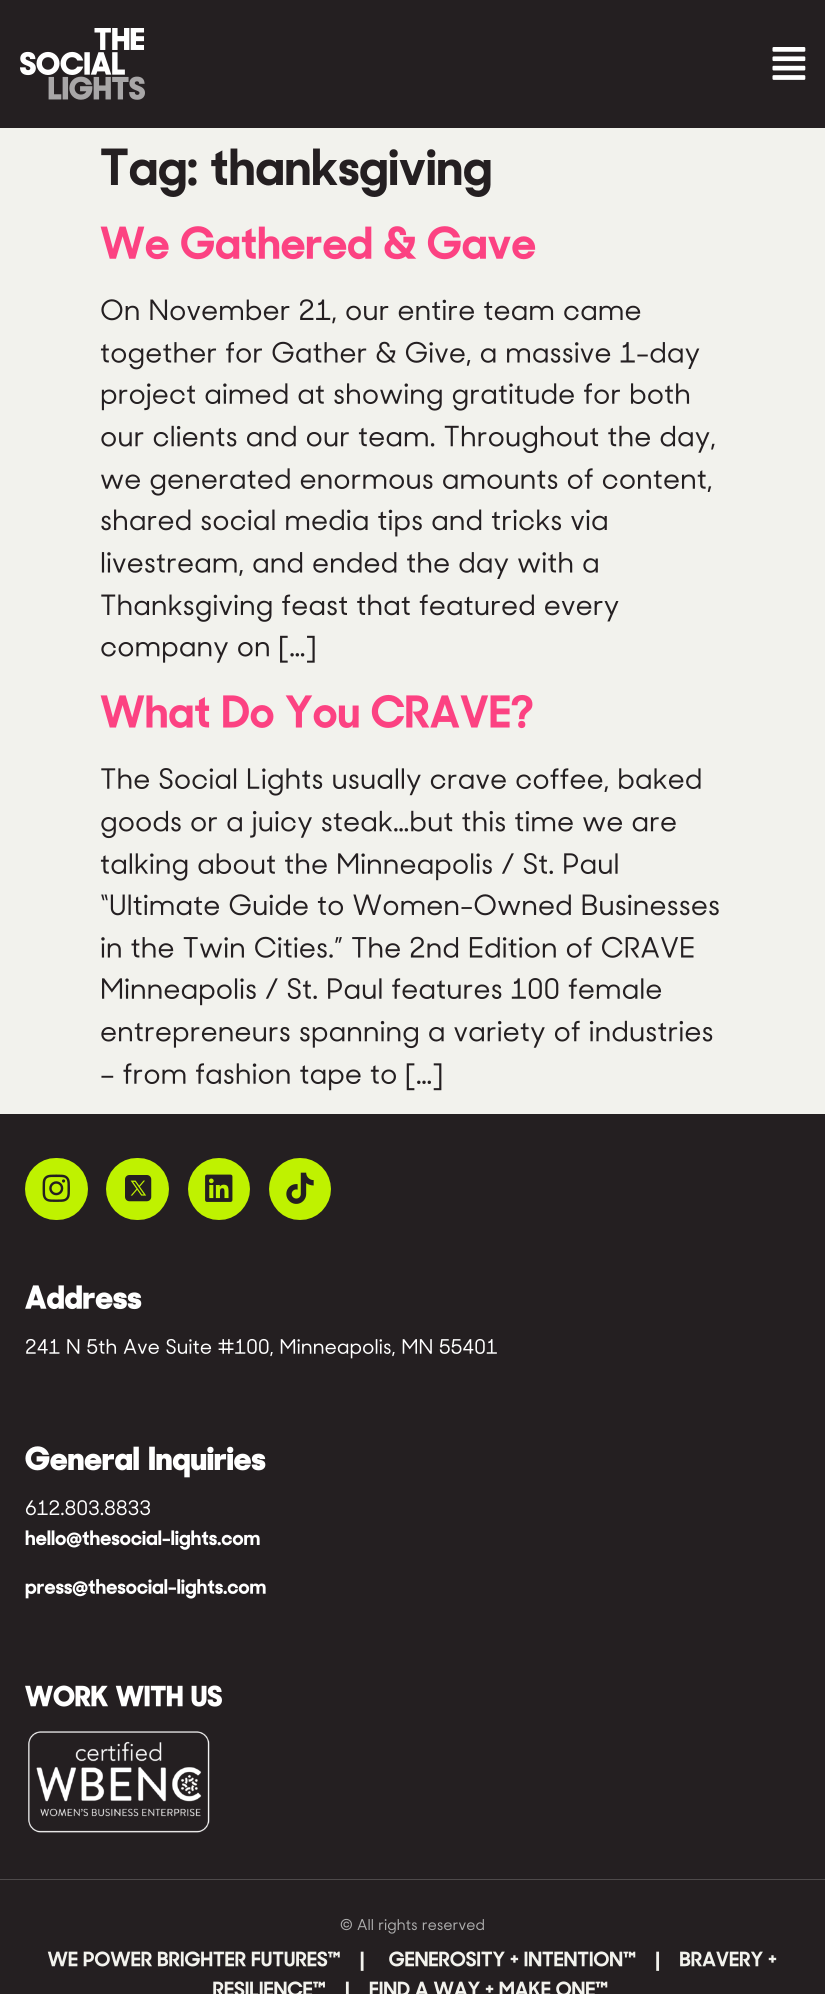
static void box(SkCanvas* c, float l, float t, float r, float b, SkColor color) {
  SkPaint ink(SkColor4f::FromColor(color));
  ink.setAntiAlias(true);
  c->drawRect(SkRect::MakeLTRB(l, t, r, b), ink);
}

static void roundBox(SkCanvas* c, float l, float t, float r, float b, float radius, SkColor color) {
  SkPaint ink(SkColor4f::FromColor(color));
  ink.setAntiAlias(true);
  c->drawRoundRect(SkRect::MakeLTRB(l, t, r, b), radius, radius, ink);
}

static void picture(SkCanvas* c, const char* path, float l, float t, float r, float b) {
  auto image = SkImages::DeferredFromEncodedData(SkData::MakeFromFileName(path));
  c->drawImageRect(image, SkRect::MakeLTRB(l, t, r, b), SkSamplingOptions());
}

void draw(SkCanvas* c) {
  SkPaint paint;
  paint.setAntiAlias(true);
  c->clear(0xfff2f2ed);
  box(c, 0, 0, 825, 128, 0xff241f21);
  picture(c, "img_01.png", 20, 28, 145, 100);
  picture(c, "img_02.png", 772, 47, 806, 80);
  picture(c, "img_03.png", 101, 148, 197, 197);
  picture(c, "img_04.png", 211, 148, 491, 197);
  picture(c, "img_05.png", 100, 226, 536, 260);
  picture(c, "img_06.png", 101, 299, 641, 324);
  picture(c, "img_07.png", 100, 341, 700, 370);
  picture(c, "img_08.png", 101, 383, 690, 411);
  picture(c, "img_09.png", 101, 425, 715, 454);
  picture(c, "img_10.png", 101, 468, 712, 496);
  picture(c, "img_11.png", 101, 509, 607, 537);
  picture(c, "img_12.png", 101, 552, 598, 579);
  picture(c, "img_13.png", 101, 594, 619, 622);
  picture(c, "img_14.png", 101, 635, 315, 663);
  picture(c, "img_15.png", 100, 694, 533, 729);
  picture(c, "img_16.png", 101, 768, 701, 796);
  picture(c, "img_17.png", 101, 810, 676, 839);
  picture(c, "img_18.png", 100, 853, 618, 881);
  picture(c, "img_19.png", 101, 894, 719, 916);
  picture(c, "img_20.png", 101, 936, 694, 958);
  picture(c, "img_21.png", 102, 978, 662, 1006);
  picture(c, "img_22.png", 101, 1020, 713, 1049);
  picture(c, "img_23.png", 101, 1063, 442, 1091);
  box(c, 0, 1114, 825, 1879, 0xff241f21);
  roundBox(c, 25, 1158, 88, 1220, 31, 0xffbff200);
  picture(c, "img_24.png", 42, 1174, 70, 1202);
  roundBox(c, 106, 1158, 169, 1220, 31, 0xffbff200);
  picture(c, "img_25.png", 125, 1175, 152, 1202);
  paint.setColor(0xffbff200);
  c->drawCircle(219, 1189, 31, paint);
  picture(c, "img_26.png", 205, 1174, 233, 1202);
  c->drawCircle(300, 1189, 31, paint);
  picture(c, "img_27.png", 286, 1172, 314, 1204);
  picture(c, "img_28.png", 25, 1285, 142, 1310);
  picture(c, "img_29.png", 26, 1338, 497, 1359);
  picture(c, "img_30.png", 25, 1446, 266, 1478);
  picture(c, "img_31.png", 25, 1500, 150, 1516);
  picture(c, "img_32.png", 25, 1530, 260, 1550);
  picture(c, "img_33.png", 25, 1579, 266, 1599);
  picture(c, "img_34.png", 25, 1685, 222, 1707);
  picture(c, "img_35.png", 28, 1731, 210, 1833);
  box(c, 0, 1880, 825, 1994, 0xff241f21);
  box(c, 0, 1879, 825, 1880, 0xff4e4a4b);
  picture(c, "img_36.png", 340, 1918, 484, 1934);
  picture(c, "img_37.png", 47, 1951, 328, 1967);
  picture(c, "img_38.png", 328, 1951, 364, 1971);
  picture(c, "img_39.png", 389, 1951, 777, 1971);
  picture(c, "img_40.png", 213, 1981, 595, 1994);
  picture(c, "img_41.png", 595, 1981, 608, 1988);
}
